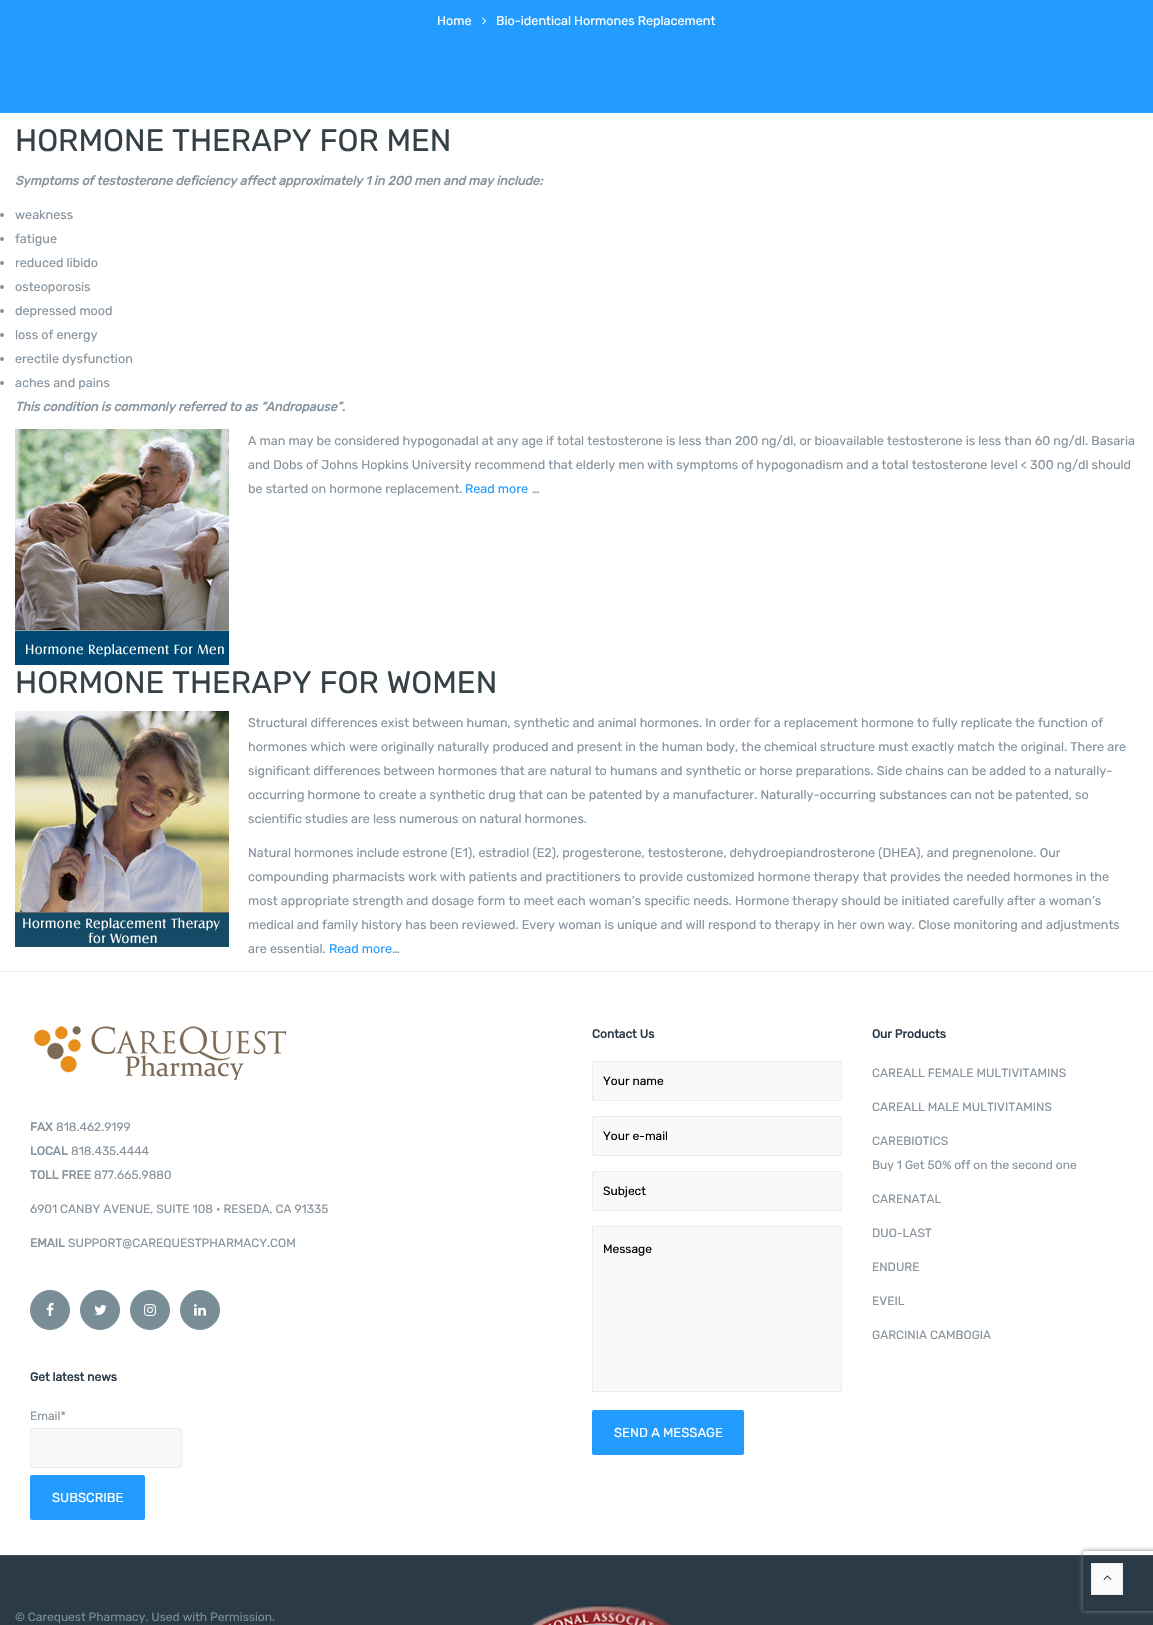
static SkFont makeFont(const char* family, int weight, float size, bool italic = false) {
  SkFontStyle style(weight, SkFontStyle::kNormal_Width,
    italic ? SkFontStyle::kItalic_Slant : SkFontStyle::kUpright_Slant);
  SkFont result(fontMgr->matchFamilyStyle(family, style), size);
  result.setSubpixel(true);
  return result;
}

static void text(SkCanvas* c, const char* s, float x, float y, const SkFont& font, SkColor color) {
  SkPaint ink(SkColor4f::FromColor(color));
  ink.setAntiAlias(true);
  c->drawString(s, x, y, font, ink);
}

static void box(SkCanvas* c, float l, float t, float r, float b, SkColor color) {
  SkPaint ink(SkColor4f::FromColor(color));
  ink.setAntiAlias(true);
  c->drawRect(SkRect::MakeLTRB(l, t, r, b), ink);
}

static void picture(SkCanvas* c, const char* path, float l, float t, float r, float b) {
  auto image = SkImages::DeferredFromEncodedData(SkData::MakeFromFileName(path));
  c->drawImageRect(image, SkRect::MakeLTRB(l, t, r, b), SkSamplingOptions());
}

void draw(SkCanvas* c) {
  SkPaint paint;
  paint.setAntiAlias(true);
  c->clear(0xffffffff);
  box(c, 0, 0, 1153, 113, 0xff229cff);
  SkFont face1 = makeFont("Rubik", 300, 12.6f);
  text(c, "Home", 437, 25, face1, 0xffffffff);
  picture(c, "img_01.png", 482, 17, 487, 25);
  text(c, "Bio-identical Hormones Replacement", 496, 25, face1, 0xffffffff);
  SkFont face2 = makeFont("Rubik", 300, 31);
  text(c, "HORMONE THERAPY FOR MEN", 15, 151, face2, 0xff364146);
  SkFont face3 = makeFont("Rubik", 700, 12.6f, true);
  text(c, "Symptoms of testosterone deficiency affect approximately 1 in 200 men and may include:", 15, 185, face3, 0xff87939d);
  paint.setColor(0xff87939d);
  c->drawCircle(2, 215, 2, paint);
  text(c, "weakness", 15, 219, face1, 0xff87939d);
  c->drawCircle(2, 239, 2, paint);
  text(c, "fatigue", 15, 243, face1, 0xff87939d);
  c->drawCircle(2, 263, 2, paint);
  text(c, "reduced libido", 15, 267, face1, 0xff87939d);
  c->drawCircle(2, 287, 2, paint);
  text(c, "osteoporosis", 15, 291, face1, 0xff87939d);
  c->drawCircle(2, 311, 2, paint);
  text(c, "depressed mood", 15, 315, face1, 0xff87939d);
  c->drawCircle(2, 335, 2, paint);
  text(c, "loss of energy", 15, 339, face1, 0xff87939d);
  c->drawCircle(2, 359, 2, paint);
  text(c, "erectile dysfunction", 15, 363, face1, 0xff87939d);
  c->drawCircle(2, 383, 2, paint);
  text(c, "aches and pains", 15, 387, face1, 0xff87939d);
  text(c, "This condition is commonly referred to as “Andropause”.", 15, 411, face3, 0xff87939d);
  picture(c, "img_02.png", 15, 429, 229, 665);
  text(c, "A man may be considered hypogonadal at any age if total testosterone is less than 200 ng/dl, or bioavailable testosterone is less than 60 ng/dl. Basaria", 248, 445, face1, 0xff87939d);
  text(c, "and Dobs of Johns Hopkins University recommend that elderly men with symptoms of hypogonadism and a total testosterone level < 300 ng/dl should", 248, 469, face1, 0xff87939d);
  text(c, "be started on hormone replacement.", 248, 493, face1, 0xff87939d);
  text(c, "Read more", 465, 493, face1, 0xff229cff);
  text(c, "…", 532, 493, face1, 0xff87939d);
  text(c, "HORMONE THERAPY FOR WOMEN", 15, 693, face2, 0xff364146);
  picture(c, "img_03.png", 15, 711, 229, 947);
  text(c, "Structural differences exist between human, synthetic and animal hormones. In order for a replacement hormone to fully replicate the function of", 248, 727, face1, 0xff87939d);
  text(c, "hormones which were originally naturally produced and present in the human body, the chemical structure must exactly match the original. There are", 248, 751, face1, 0xff87939d);
  text(c, "significant differences between hormones that are natural to humans and synthetic or horse preparations. Side chains can be added to a naturally-", 248, 775, face1, 0xff87939d);
  text(c, "occurring hormone to create a synthetic drug that can be patented by a manufacturer. Naturally-occurring substances can not be patented, so", 248, 799, face1, 0xff87939d);
  text(c, "scientific studies are less numerous on natural hormones.", 248, 823, face1, 0xff87939d);
  text(c, "Natural hormones include estrone (E1), estradiol (E2), progesterone, testosterone, dehydroepiandrosterone (DHEA), and pregnenolone. Our", 248, 857, face1, 0xff87939d);
  text(c, "compounding pharmacists work with patients and practitioners to provide customized hormone therapy that provides the needed hormones in the", 248, 881, face1, 0xff87939d);
  text(c, "most appropriate strength and dosage form to meet each woman’s specific needs. Hormone therapy should be initiated carefully after a woman’s", 248, 905, face1, 0xff87939d);
  text(c, "medical and family history has been reviewed. Every woman is unique and will respond to therapy in her own way. Close monitoring and adjustments", 248, 929, face1, 0xff87939d);
  text(c, "are essential.", 248, 953, face1, 0xff87939d);
  text(c, "Read more", 329, 953, face1, 0xff229cff);
  text(c, "…", 392, 953, face1, 0xff87939d);
  box(c, 0, 971, 1153, 972, 0xffebebeb);
  picture(c, "img_04.png", 34, 1026, 286, 1080);
  SkFont face4 = makeFont("Rubik", 700, 12);
  text(c, "FAX", 30, 1131, face4, 0xff87939d);
  SkFont face5 = makeFont("Rubik", 300, 12);
  text(c, "818.462.9199", 56, 1131, face5, 0xff87939d);
  text(c, "LOCAL", 30, 1155, face4, 0xff87939d);
  text(c, "818.435.4444", 71, 1155, face5, 0xff87939d);
  text(c, "TOLL FREE", 30, 1179, face4, 0xff87939d);
  text(c, "877.665.9880", 94, 1179, face5, 0xff87939d);
  text(c, "6901 CANBY AVENUE, SUITE 108 • RESEDA, CA 91335", 30, 1213, face5, 0xff87939d);
  text(c, "EMAIL", 30, 1247, face4, 0xff87939d);
  text(c, "SUPPORT@CAREQUESTPHARMACY.COM", 68, 1247, face5, 0xff87939d);
  paint.setColor(0xff798d97);
  c->drawCircle(50, 1310, 19.5f, paint);
  paint.setStyle(SkPaint::kStroke_Style);
  paint.setStrokeWidth(1);
  c->drawCircle(50, 1310, 19.5f, paint);
  picture(c, "img_05.png", 46, 1303, 54, 1316);
  paint.setStyle(SkPaint::kFill_Style);
  c->drawCircle(100, 1310, 19.5f, paint);
  paint.setStyle(SkPaint::kStroke_Style);
  c->drawCircle(100, 1310, 19.5f, paint);
  picture(c, "img_06.png", 94, 1305, 107, 1315);
  paint.setStyle(SkPaint::kFill_Style);
  c->drawCircle(150, 1310, 19.5f, paint);
  paint.setStyle(SkPaint::kStroke_Style);
  c->drawCircle(150, 1310, 19.5f, paint);
  picture(c, "img_07.png", 144, 1304, 156, 1316);
  paint.setStyle(SkPaint::kFill_Style);
  c->drawCircle(200, 1310, 19.5f, paint);
  paint.setStyle(SkPaint::kStroke_Style);
  c->drawCircle(200, 1310, 19.5f, paint);
  picture(c, "img_08.png", 194, 1304, 206, 1316);
  text(c, "Get latest news", 30, 1381, face4, 0xff2a3947);
  text(c, "Email*", 30, 1420, face5, 0xff87939d);
  paint.setStyle(SkPaint::kFill_Style);
  paint.setColor(0xfff9f9f9);
  c->drawRoundRect(SkRect::MakeLTRB(30.5f, 1428.5f, 181.5f, 1467.5f), 1.5f, 1.5f, paint);
  paint.setStyle(SkPaint::kStroke_Style);
  paint.setColor(0xffebebeb);
  c->drawRoundRect(SkRect::MakeLTRB(30.5f, 1428.5f, 181.5f, 1467.5f), 1.5f, 1.5f, paint);
  paint.setStyle(SkPaint::kFill_Style);
  paint.setColor(0xff229cff);
  c->drawRoundRect(SkRect::MakeLTRB(31, 1476, 144, 1519), 1, 1, paint);
  paint.setStyle(SkPaint::kStroke_Style);
  paint.setStrokeWidth(2);
  c->drawRoundRect(SkRect::MakeLTRB(31, 1476, 144, 1519), 1, 1, paint);
  SkFont face6 = makeFont("Rubik", 300, 13);
  text(c, "SUBSCRIBE", 52, 1502, face6, 0xffffffff);
  text(c, "Contact Us", 592, 1038, face4, 0xff2a3947);
  paint.setStyle(SkPaint::kFill_Style);
  paint.setColor(0xfff9f9f9);
  c->drawRoundRect(SkRect::MakeLTRB(592.5f, 1061.5f, 841.5f, 1100.5f), 1.5f, 1.5f, paint);
  paint.setStyle(SkPaint::kStroke_Style);
  paint.setStrokeWidth(1);
  paint.setColor(0xffebebeb);
  c->drawRoundRect(SkRect::MakeLTRB(592.5f, 1061.5f, 841.5f, 1100.5f), 1.5f, 1.5f, paint);
  text(c, "Your name", 603, 1085, face5, 0xff000000);
  paint.setStyle(SkPaint::kFill_Style);
  paint.setColor(0xfff9f9f9);
  c->drawRoundRect(SkRect::MakeLTRB(592.5f, 1116.5f, 841.5f, 1155.5f), 1.5f, 1.5f, paint);
  paint.setStyle(SkPaint::kStroke_Style);
  paint.setColor(0xffebebeb);
  c->drawRoundRect(SkRect::MakeLTRB(592.5f, 1116.5f, 841.5f, 1155.5f), 1.5f, 1.5f, paint);
  text(c, "Your e-mail", 603, 1140, face5, 0xff000000);
  paint.setStyle(SkPaint::kFill_Style);
  paint.setColor(0xfff9f9f9);
  c->drawRoundRect(SkRect::MakeLTRB(592.5f, 1171.5f, 841.5f, 1210.5f), 1.5f, 1.5f, paint);
  paint.setStyle(SkPaint::kStroke_Style);
  paint.setColor(0xffebebeb);
  c->drawRoundRect(SkRect::MakeLTRB(592.5f, 1171.5f, 841.5f, 1210.5f), 1.5f, 1.5f, paint);
  text(c, "Subject", 603, 1195, face5, 0xff000000);
  paint.setStyle(SkPaint::kFill_Style);
  paint.setColor(0xfff9f9f9);
  c->drawRect(SkRect::MakeLTRB(592.5f, 1226.5f, 841.5f, 1391.5f), paint);
  paint.setStyle(SkPaint::kStroke_Style);
  paint.setColor(0xffebebeb);
  c->drawRect(SkRect::MakeLTRB(592.5f, 1226.5f, 841.5f, 1391.5f), paint);
  text(c, "Message", 603, 1253, face5, 0xff000000);
  paint.setStyle(SkPaint::kFill_Style);
  paint.setColor(0xff229cff);
  c->drawRoundRect(SkRect::MakeLTRB(593, 1411, 743, 1454), 1, 1, paint);
  paint.setStyle(SkPaint::kStroke_Style);
  paint.setStrokeWidth(2);
  c->drawRoundRect(SkRect::MakeLTRB(593, 1411, 743, 1454), 1, 1, paint);
  text(c, "SEND A MESSAGE", 614, 1437, face6, 0xffffffff);
  text(c, "Our Products", 872, 1038, face4, 0xff2a3947);
  text(c, "CAREALL FEMALE MULTIVITAMINS", 872, 1077, face5, 0xff87939d);
  text(c, "CAREALL MALE MULTIVITAMINS", 872, 1111, face5, 0xff87939d);
  text(c, "CAREBIOTICS", 872, 1145, face5, 0xff87939d);
  text(c, "Buy 1 Get 50% off on the second one", 872, 1169, face5, 0xff87939d);
  text(c, "CARENATAL", 872, 1203, face5, 0xff87939d);
  text(c, "DUO-LAST", 872, 1237, face5, 0xff87939d);
  text(c, "ENDURE", 872, 1271, face5, 0xff87939d);
  text(c, "EVEIL", 872, 1305, face5, 0xff87939d);
  text(c, "GARCINIA CAMBOGIA", 872, 1339, face5, 0xff87939d);
  box(c, 0, 1556, 1153, 1625, 0xff2a3a47);
  box(c, 0, 1555, 1153, 1556, 0xff3f4e59);
  c->save();
  c->clipPath(SkPathBuilder(SkPathFillType::kEvenOdd).moveTo(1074, 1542).lineTo(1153, 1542).lineTo(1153, 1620).lineTo(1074, 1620).close().moveTo(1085, 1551).lineTo(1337, 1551).cubicTo(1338, 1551, 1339, 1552, 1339, 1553).lineTo(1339, 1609).cubicTo(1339, 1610, 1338, 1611, 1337, 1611).lineTo(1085, 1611).cubicTo(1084, 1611, 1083, 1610, 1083, 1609).lineTo(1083, 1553).cubicTo(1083, 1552, 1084, 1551, 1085, 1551).close().detach(), true);
  paint.setStyle(SkPaint::kFill_Style);
  paint.setColor(0xff808080);
  paint.setMaskFilter(SkMaskFilter::MakeBlur(kNormal_SkBlurStyle, 2.5f));
  c->drawRoundRect(SkRect::MakeLTRB(1083, 1551, 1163, 1611), 2, 2, paint);
  paint.setMaskFilter(nullptr);
  c->restore();
  paint.setColor(0xfffbfafa);
  c->drawRect(SkRect::MakeLTRB(1091.5f, 1563.5f, 1122.5f, 1594.5f), paint);
  paint.setStyle(SkPaint::kStroke_Style);
  paint.setStrokeWidth(1);
  paint.setColor(0xffebebeb);
  c->drawRect(SkRect::MakeLTRB(1091.5f, 1563.5f, 1122.5f, 1594.5f), paint);
  picture(c, "img_09.png", 1103, 1575, 1112, 1580);
  text(c, "© Carequest Pharmacy. Used with Permission.", 15, 1621, face5, 0xff798d97);
  picture(c, "img_10.png", 530, 1605, 673, 1625);
}
